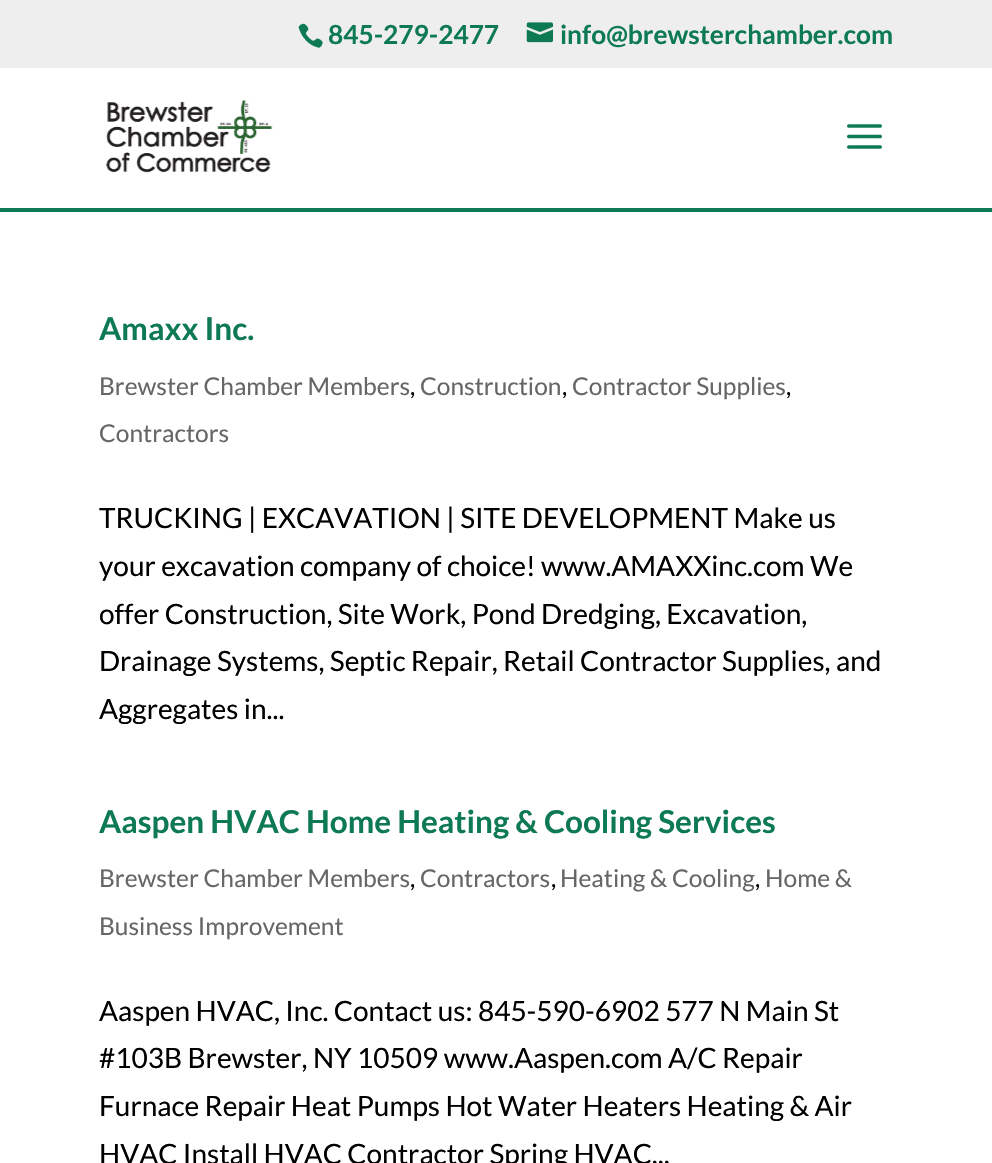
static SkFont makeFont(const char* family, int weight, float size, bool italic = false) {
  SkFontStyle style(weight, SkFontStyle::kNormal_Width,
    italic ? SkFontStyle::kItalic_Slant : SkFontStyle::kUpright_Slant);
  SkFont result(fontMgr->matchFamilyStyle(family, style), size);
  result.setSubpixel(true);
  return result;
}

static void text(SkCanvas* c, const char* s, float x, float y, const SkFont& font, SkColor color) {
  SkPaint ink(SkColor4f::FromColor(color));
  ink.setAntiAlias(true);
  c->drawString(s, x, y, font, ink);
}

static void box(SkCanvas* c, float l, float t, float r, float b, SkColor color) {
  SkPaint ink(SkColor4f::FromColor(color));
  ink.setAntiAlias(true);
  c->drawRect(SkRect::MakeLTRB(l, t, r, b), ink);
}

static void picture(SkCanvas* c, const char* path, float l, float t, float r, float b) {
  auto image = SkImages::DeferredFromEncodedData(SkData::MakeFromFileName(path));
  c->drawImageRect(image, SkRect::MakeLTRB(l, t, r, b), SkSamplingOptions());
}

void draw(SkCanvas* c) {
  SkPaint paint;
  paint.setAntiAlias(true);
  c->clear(0xffffffff);
  box(c, 0, 0, 992, 68, 0xffeeeeee);
  picture(c, "img_01.png", 298, 23, 323, 48);
  SkFont face1 = makeFont("Lato", 700, 26.25f);
  text(c, "845-279-2477", 328, 44, face1, 0xff0e7a53);
  picture(c, "img_02.png", 526, 22, 553, 43);
  text(c, "info@brewsterchamber.com", 560, 44, face1, 0xff0e7a53);
  box(c, 0, 208, 992, 212, 0xff0e7a53);
  picture(c, "img_03.png", 106, 100, 273, 173);
  picture(c, "img_04.png", 847, 124, 882, 149);
  SkFont face2 = makeFont("Lato", 700, 31.5f);
  text(c, "Amaxx Inc.", 99, 340, face2, 0xff0e7a53);
  SkFont face3 = makeFont("Lato", 400, 24.5f);
  text(c, "Brewster Chamber Members", 99, 395, face3, 0xff666666);
  text(c, ",", 410, 395, face3, 0xff000000);
  text(c, "Construction", 420, 395, face3, 0xff666666);
  text(c, ",", 562, 395, face3, 0xff000000);
  text(c, "Contractor Supplies", 572, 395, face3, 0xff666666);
  text(c, ",", 786, 395, face3, 0xff000000);
  text(c, "Contractors", 99, 442, face3, 0xff666666);
  SkFont face4 = makeFont("Lato", 400, 28);
  text(c, "TRUCKING | EXCAVATION | SITE DEVELOPMENT Make us", 99, 528, face4, 0xff000000);
  text(c, "your excavation company of choice! www.AMAXXinc.com We", 99, 576, face4, 0xff000000);
  text(c, "offer Construction, Site Work, Pond Dredging, Excavation,", 99, 624, face4, 0xff000000);
  text(c, "Drainage Systems, Septic Repair, Retail Contractor Supplies, and", 99, 671, face4, 0xff000000);
  text(c, "Aggregates in...", 99, 719, face4, 0xff000000);
  text(c, "Aaspen HVAC Home Heating & Cooling Services", 99, 833, face2, 0xff0e7a53);
  text(c, "Brewster Chamber Members", 99, 887, face3, 0xff666666);
  text(c, ",", 410, 887, face3, 0xff000000);
  text(c, "Contractors", 420, 887, face3, 0xff666666);
  text(c, ",", 551, 887, face3, 0xff000000);
  text(c, "Heating & Cooling", 560, 887, face3, 0xff666666);
  text(c, ",", 755, 887, face3, 0xff000000);
  text(c, "Home &", 765, 887, face3, 0xff666666);
  text(c, "Business Improvement", 99, 935, face3, 0xff666666);
  text(c, "Aaspen HVAC, Inc. Contact us: 845-590-6902 577 N Main St", 99, 1021, face4, 0xff000000);
  text(c, "#103B Brewster, NY 10509 www.Aaspen.com A/C Repair", 99, 1068, face4, 0xff000000);
  text(c, "Furnace Repair Heat Pumps Hot Water Heaters Heating & Air", 99, 1116, face4, 0xff000000);
  text(c, "HVAC Install HVAC Contractor Spring HVAC...", 99, 1164, face4, 0xff000000);
}
